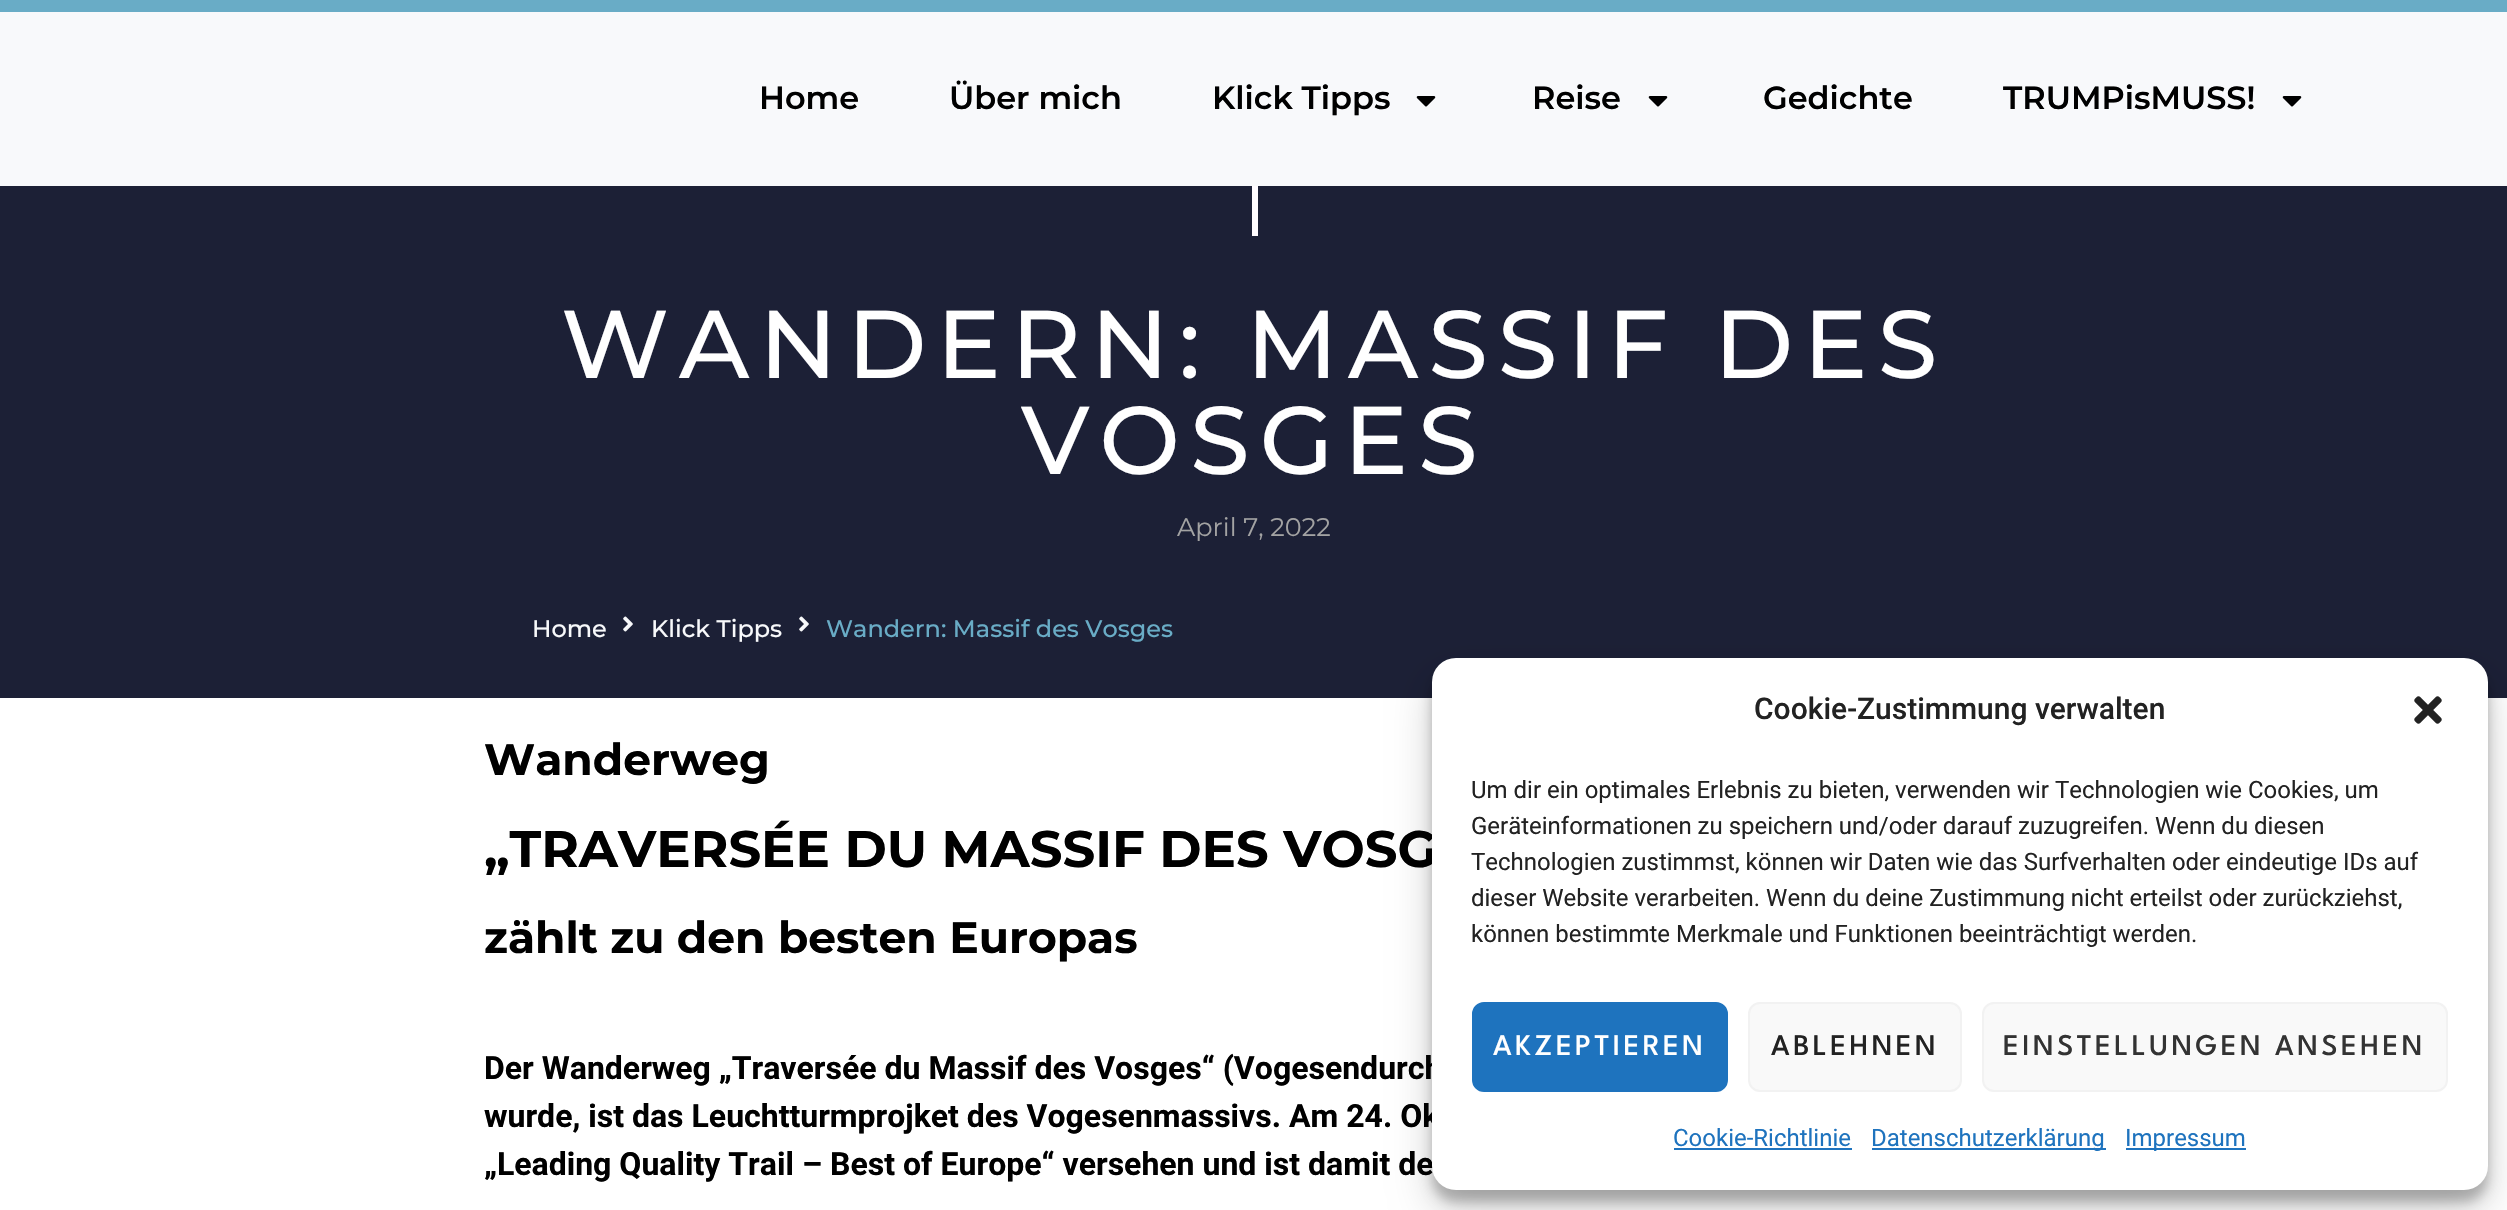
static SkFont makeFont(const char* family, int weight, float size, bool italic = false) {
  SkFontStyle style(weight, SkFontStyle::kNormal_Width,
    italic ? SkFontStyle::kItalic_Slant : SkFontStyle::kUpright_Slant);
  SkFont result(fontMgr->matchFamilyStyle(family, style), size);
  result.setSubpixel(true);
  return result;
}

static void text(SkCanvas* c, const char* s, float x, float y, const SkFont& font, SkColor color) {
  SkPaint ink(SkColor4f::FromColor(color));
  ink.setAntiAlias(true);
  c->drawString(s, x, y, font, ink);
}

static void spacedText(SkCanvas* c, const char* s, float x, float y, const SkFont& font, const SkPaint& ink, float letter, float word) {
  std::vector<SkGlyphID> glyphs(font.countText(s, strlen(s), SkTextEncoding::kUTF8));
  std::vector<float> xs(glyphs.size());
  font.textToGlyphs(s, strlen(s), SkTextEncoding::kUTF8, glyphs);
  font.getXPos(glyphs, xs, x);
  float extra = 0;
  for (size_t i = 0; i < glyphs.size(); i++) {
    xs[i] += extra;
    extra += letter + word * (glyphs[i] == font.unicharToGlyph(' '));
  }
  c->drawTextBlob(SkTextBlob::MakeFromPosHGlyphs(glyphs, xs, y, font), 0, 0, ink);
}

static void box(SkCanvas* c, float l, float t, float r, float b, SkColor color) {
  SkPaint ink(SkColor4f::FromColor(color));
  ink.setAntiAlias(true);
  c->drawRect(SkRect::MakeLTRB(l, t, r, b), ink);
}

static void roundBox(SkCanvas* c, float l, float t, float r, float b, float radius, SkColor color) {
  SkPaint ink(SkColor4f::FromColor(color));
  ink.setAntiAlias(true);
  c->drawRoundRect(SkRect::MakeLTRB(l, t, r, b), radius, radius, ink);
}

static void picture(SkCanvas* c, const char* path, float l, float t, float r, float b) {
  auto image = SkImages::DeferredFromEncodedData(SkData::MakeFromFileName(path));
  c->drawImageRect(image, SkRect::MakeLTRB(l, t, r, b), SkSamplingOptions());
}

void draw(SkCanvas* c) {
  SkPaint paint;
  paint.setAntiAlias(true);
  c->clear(0xffffffff);
  box(c, 0, 12, 2507, 186, 0xfff8f9fb);
  box(c, 0, 0, 2507, 12, 0xff69acc6);
  SkFont face1 = makeFont("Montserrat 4", 100, 32);
  text(c, "Home", 759, 109, face1, 0xff000000);
  text(c, "Über mich", 949, 109, face1, 0xff000000);
  text(c, "Klick Tipps", 1212, 109, face1, 0xff000000);
  picture(c, "img_01.png", 1416, 96, 1436, 107);
  text(c, "Reise", 1532, 109, face1, 0xff000000);
  picture(c, "img_01.png", 1648, 96, 1668, 107);
  text(c, "Gedichte", 1763, 109, face1, 0xff000000);
  text(c, "TRUMPisMUSS!", 2003, 109, face1, 0xff000000);
  picture(c, "img_01.png", 2282, 96, 2302, 107);
  box(c, 0, 186, 2507, 698, 0xff1c2036);
  box(c, 1252, 186, 1258, 236, 0xfffffcff);
  SkFont face2 = makeFont("Montserrat", 100, 96);
  paint.setColor(0xffffffff);
  spacedText(c, "WANDERN: MASSIF DES", 561, 378, face2, paint, 10, 0);
  spacedText(c, "VOSGES", 1021, 474, face2, paint, 10, 0);
  SkFont face3 = makeFont("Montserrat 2", 100, 25.5f);
  text(c, "April 7, 2022", 1177, 536, face3, 0xffa3a3a3);
  SkFont face4 = makeFont("Montserrat", 100, 24);
  text(c, "Home", 532, 637, face4, 0xfff8f9fb);
  picture(c, "img_02.png", 623, 616, 633, 632);
  text(c, "Klick Tipps", 651, 637, face4, 0xfff8f9fb);
  picture(c, "img_02.png", 799, 616, 809, 632);
  text(c, "Wandern: Massif des Vosges", 826, 637, face4, 0xff69acc6);
  SkFont face5 = makeFont("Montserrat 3", 100, 44);
  text(c, "Wanderweg", 484, 775, face5, 0xff000000);
  SkFont face6 = makeFont("Montserrat 3", 100, 51.25f);
  text(c, "„TRAVERSÉE DU MASSIF DES VOSG", 484, 867, face6, 0xff000000);
  text(c, "zählt zu den besten Europas", 484, 953, face5, 0xff000000);
  SkFont face7 = makeFont("Roboto", 700, 32);
  text(c, "Der Wanderweg „Traversée du Massif des Vosges“ (Vogesendurch", 484, 1079, face7, 0xff000000);
  text(c, "wurde, ist das Leuchtturmprojket des Vogesenmassivs. Am 24. Ok", 484, 1127, face7, 0xff000000);
  text(c, "„Leading Quality Trail – Best of Europe“ versehen und ist damit de", 484, 1175, face7, 0xff000000);
  paint.setColor(0x3b000000);
  paint.setMaskFilter(SkMaskFilter::MakeBlur(kNormal_SkBlurStyle, 6));
  c->drawRoundRect(SkRect::MakeLTRB(1432, 670, 2488, 1202), 24, 24, paint);
  paint.setMaskFilter(nullptr);
  paint.setColor(0x30000000);
  paint.setMaskFilter(SkMaskFilter::MakeBlur(kNormal_SkBlurStyle, 20));
  c->drawRoundRect(SkRect::MakeLTRB(1432, 678, 2488, 1210), 24, 24, paint);
  paint.setMaskFilter(nullptr);
  roundBox(c, 1432, 658, 2488, 1190, 24, 0xffffffff);
  SkFont face8 = makeFont("Roboto", 500, 30);
  text(c, "Cookie-Zustimmung verwalten", 1754, 719, face8, 0xff222222);
  picture(c, "img_03.png", 2414, 696, 2442, 724);
  SkFont face9 = makeFont("Roboto", 400, 24);
  text(c, "Um dir ein optimales Erlebnis zu bieten, verwenden wir Technologien wie Cookies, um", 1471, 798, face9, 0xff222222);
  text(c, "Geräteinformationen zu speichern und/oder darauf zuzugreifen. Wenn du diesen", 1471, 834, face9, 0xff222222);
  text(c, "Technologien zustimmst, können wir Daten wie das Surfverhalten oder eindeutige IDs auf", 1471, 870, face9, 0xff222222);
  text(c, "dieser Website verarbeiten. Wenn du deine Zustimmung nicht erteilst oder zurückziehst,", 1471, 906, face9, 0xff222222);
  text(c, "können bestimmte Merkmale und Funktionen beeinträchtigt werden.", 1471, 942, face9, 0xff222222);
  paint.setColor(0xff1e73be);
  c->drawRoundRect(SkRect::MakeLTRB(1473, 1003, 1727, 1091), 11, 11, paint);
  paint.setStyle(SkPaint::kStroke_Style);
  paint.setStrokeWidth(2);
  c->drawRoundRect(SkRect::MakeLTRB(1473, 1003, 1727, 1091), 11, 11, paint);
  SkFont face10 = makeFont("League Spartan", 100, 30);
  paint.setStyle(SkPaint::kFill_Style);
  paint.setColor(0xffffffff);
  spacedText(c, "AKZEPTIEREN", 1493, 1055, face10, paint, 3.4f, 0);
  paint.setColor(0xfff9f9f9);
  c->drawRoundRect(SkRect::MakeLTRB(1749, 1003, 1961, 1091), 11, 11, paint);
  paint.setStyle(SkPaint::kStroke_Style);
  paint.setColor(0xfff2f2f2);
  c->drawRoundRect(SkRect::MakeLTRB(1749, 1003, 1961, 1091), 11, 11, paint);
  paint.setStyle(SkPaint::kFill_Style);
  paint.setColor(0xff222222);
  spacedText(c, "ABLEHNEN", 1771, 1055, face10, paint, 3.4f, 0);
  paint.setColor(0xfff9f9f9);
  c->drawRoundRect(SkRect::MakeLTRB(1983, 1003, 2447, 1091), 11, 11, paint);
  paint.setStyle(SkPaint::kStroke_Style);
  paint.setColor(0xfff2f2f2);
  c->drawRoundRect(SkRect::MakeLTRB(1983, 1003, 2447, 1091), 11, 11, paint);
  paint.setStyle(SkPaint::kFill_Style);
  paint.setColor(0xff333333);
  spacedText(c, "EINSTELLUNGEN ANSEHEN", 2003, 1055, face10, paint, 3.4f, 0);
  text(c, "Cookie-Richtlinie", 1673, 1146, face9, 0xff1e73be);
  box(c, 1674, 1148, 1852, 1150, 0xff1e73be);
  box(c, 1872, 1148, 2106, 1150, 0xff1e73be);
  text(c, "Datenschutzerklärung", 1871, 1146, face9, 0xff1e73be);
  box(c, 2126, 1148, 2246, 1150, 0xff1e73be);
  text(c, "Impressum", 2125, 1146, face9, 0xff1e73be);
}
